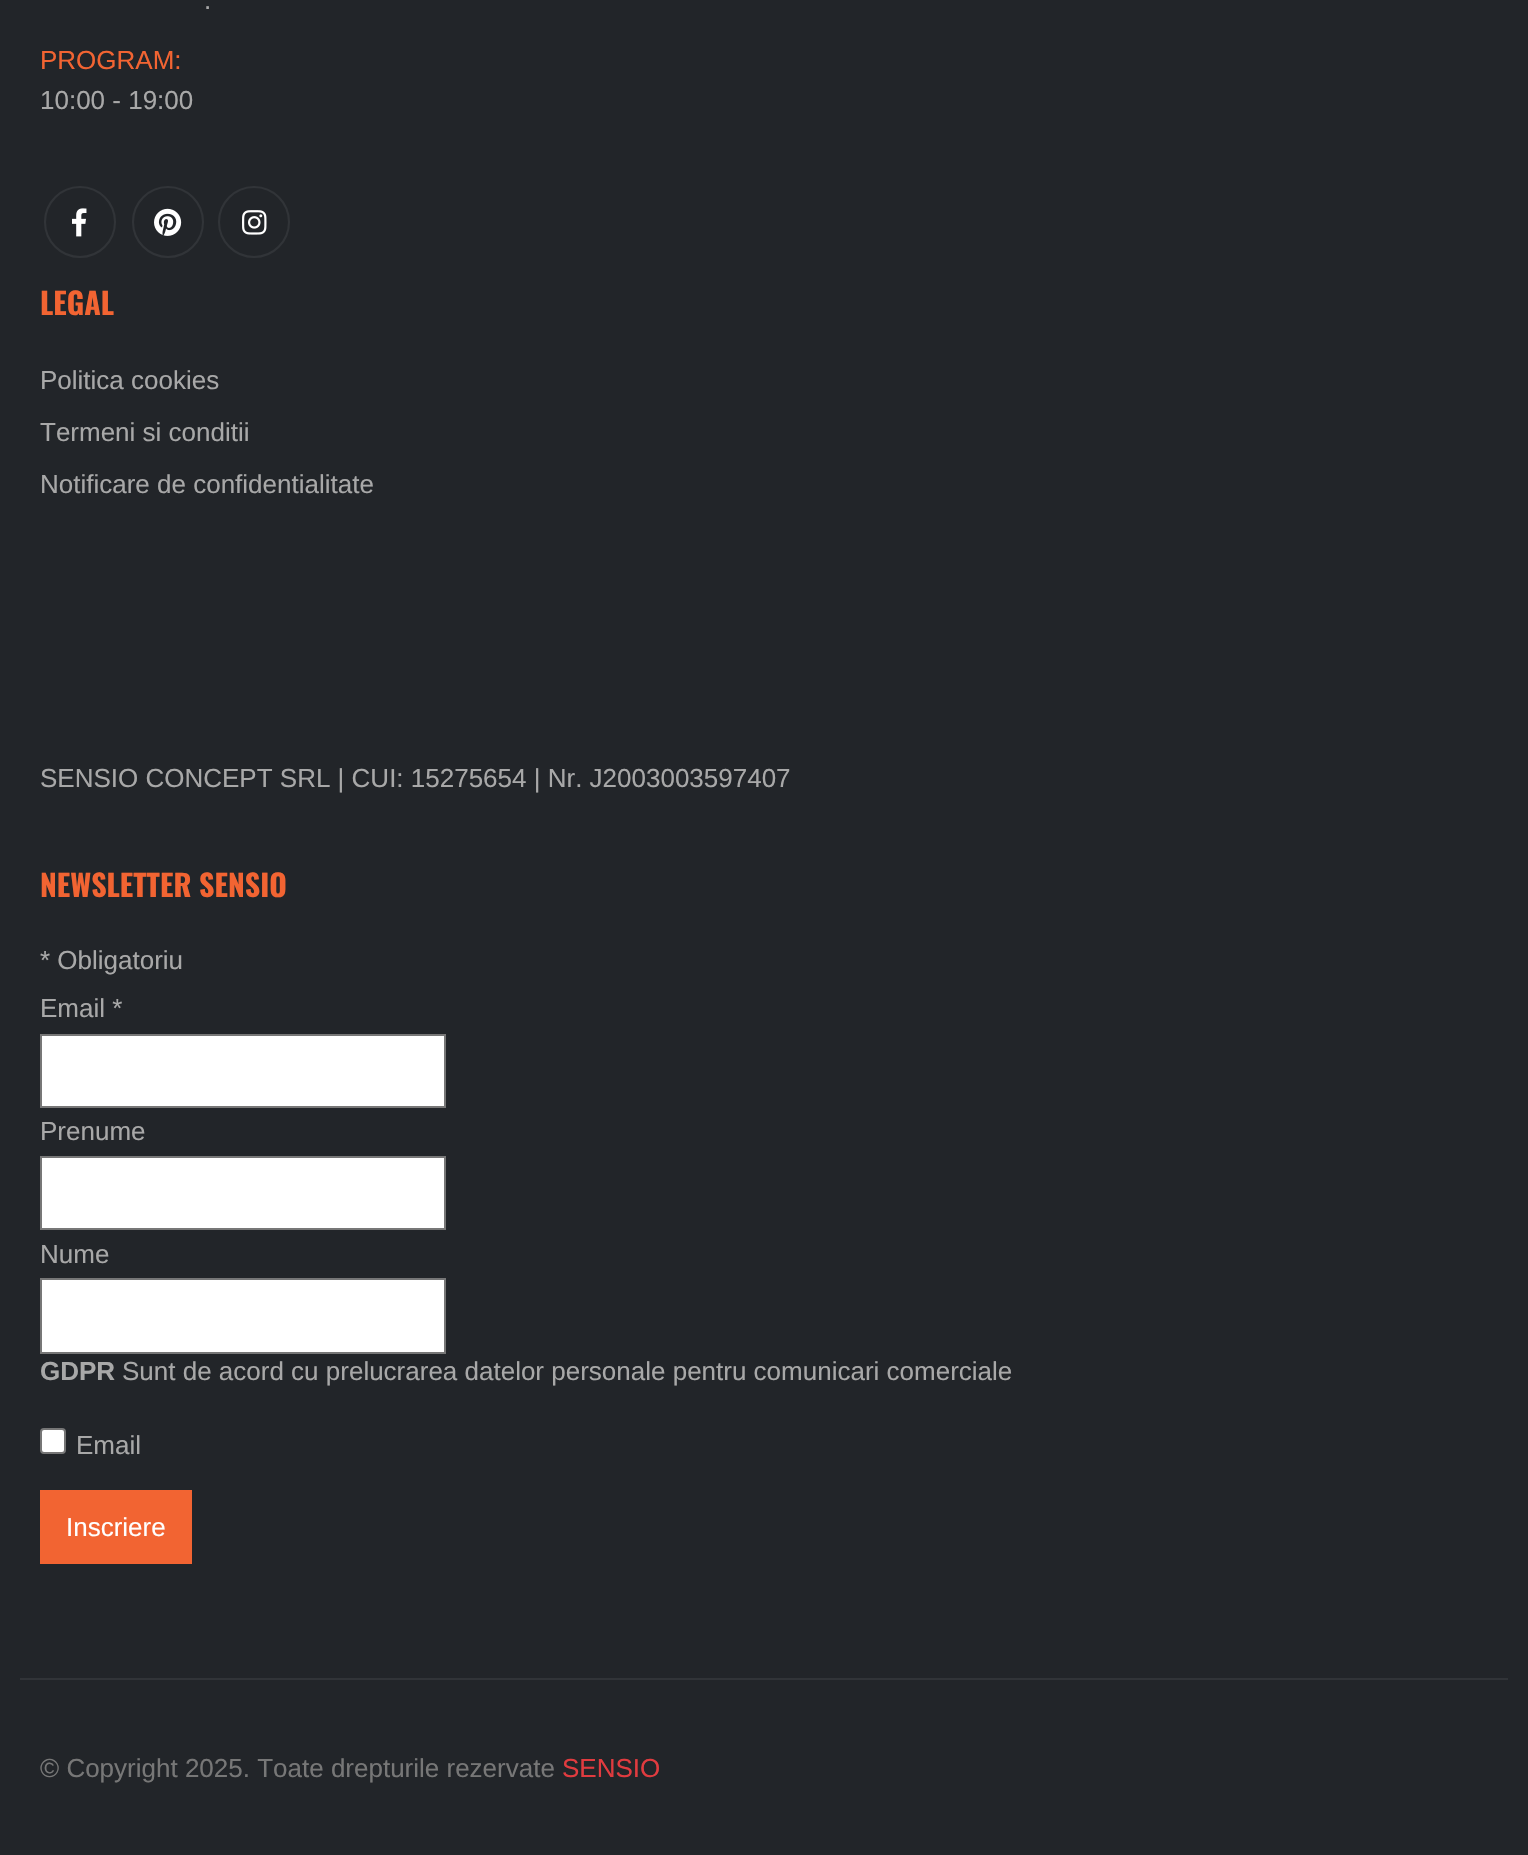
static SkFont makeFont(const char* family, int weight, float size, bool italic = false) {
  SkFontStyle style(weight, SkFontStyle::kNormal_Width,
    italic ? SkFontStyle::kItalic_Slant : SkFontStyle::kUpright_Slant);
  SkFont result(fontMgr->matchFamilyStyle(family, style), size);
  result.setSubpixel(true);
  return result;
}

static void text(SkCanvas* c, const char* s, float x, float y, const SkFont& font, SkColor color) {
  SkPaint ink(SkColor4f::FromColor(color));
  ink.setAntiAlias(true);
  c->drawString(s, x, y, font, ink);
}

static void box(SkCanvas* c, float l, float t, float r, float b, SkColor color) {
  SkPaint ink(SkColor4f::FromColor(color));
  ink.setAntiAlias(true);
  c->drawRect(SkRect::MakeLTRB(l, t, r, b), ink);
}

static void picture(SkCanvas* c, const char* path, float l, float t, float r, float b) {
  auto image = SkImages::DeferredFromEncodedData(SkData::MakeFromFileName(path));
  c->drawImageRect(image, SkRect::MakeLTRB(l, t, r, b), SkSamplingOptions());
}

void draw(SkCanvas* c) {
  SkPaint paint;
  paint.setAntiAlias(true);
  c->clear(0xff222529);
  SkFont face1 = makeFont("Liberation Sans", 400, 26);
  text(c, ".", 204, 9, face1, 0xffa8a8a8);
  text(c, "PROGRAM:", 40, 69, face1, 0xfff26432);
  text(c, "10:00 - 19:00", 40, 109, face1, 0xffa8a8a8);
  paint.setStyle(SkPaint::kStroke_Style);
  paint.setStrokeWidth(2);
  paint.setColor(0xff313438);
  c->drawCircle(80, 222, 35, paint);
  picture(c, "img_01.png", 72, 208, 87, 237);
  c->drawCircle(168, 222, 35, paint);
  picture(c, "img_02.png", 154, 208, 182, 236);
  c->drawCircle(254, 222, 35, paint);
  picture(c, "img_03.png", 242, 210, 267, 235);
  SkFont face2 = makeFont("Oswald", 700, 30);
  text(c, "LEGAL", 40, 315, face2, 0xfff26432);
  text(c, "Politica cookies", 40, 389, face1, 0xffa8a8a8);
  text(c, "Termeni si conditii", 40, 441, face1, 0xffa8a8a8);
  text(c, "Notificare de confidentialitate", 40, 493, face1, 0xffa8a8a8);
  text(c, "SENSIO CONCEPT SRL | CUI: 15275654 | Nr. J2003003597407", 40, 787, face1, 0xffa8a8a8);
  text(c, "NEWSLETTER SENSIO", 40, 897, face2, 0xfff26432);
  text(c, "* Obligatoriu", 40, 969, face1, 0xffa8a8a8);
  text(c, "Email *", 40, 1017, face1, 0xffa8a8a8);
  paint.setStyle(SkPaint::kFill_Style);
  paint.setColor(0xffffffff);
  c->drawRect(SkRect::MakeLTRB(41, 1035, 445, 1107), paint);
  paint.setStyle(SkPaint::kStroke_Style);
  paint.setColor(0xff777777);
  c->drawRect(SkRect::MakeLTRB(41, 1035, 445, 1107), paint);
  text(c, "Prenume", 40, 1140, face1, 0xffa8a8a8);
  paint.setStyle(SkPaint::kFill_Style);
  paint.setColor(0xffffffff);
  c->drawRect(SkRect::MakeLTRB(41, 1157, 445, 1229), paint);
  paint.setStyle(SkPaint::kStroke_Style);
  paint.setColor(0xff777777);
  c->drawRect(SkRect::MakeLTRB(41, 1157, 445, 1229), paint);
  text(c, "Nume", 40, 1263, face1, 0xffa8a8a8);
  paint.setStyle(SkPaint::kFill_Style);
  paint.setColor(0xffffffff);
  c->drawRect(SkRect::MakeLTRB(41, 1279, 445, 1353), paint);
  paint.setStyle(SkPaint::kStroke_Style);
  paint.setColor(0xff777777);
  c->drawRect(SkRect::MakeLTRB(41, 1279, 445, 1353), paint);
  SkFont face3 = makeFont("Liberation Sans", 700, 26);
  text(c, "GDPR", 40, 1380, face3, 0xffa8a8a8);
  text(c, "Sunt de acord cu prelucrarea datelor personale pentru comunicari comerciale", 122, 1380, face1, 0xffa8a8a8);
  paint.setStyle(SkPaint::kFill_Style);
  paint.setColor(0xffffffff);
  c->drawRoundRect(SkRect::MakeLTRB(41, 1429, 65, 1453), 3, 3, paint);
  paint.setStyle(SkPaint::kStroke_Style);
  paint.setColor(0xff767676);
  c->drawRoundRect(SkRect::MakeLTRB(41, 1429, 65, 1453), 3, 3, paint);
  text(c, "Email", 76, 1454, face1, 0xffa8a8a8);
  box(c, 40, 1490, 192, 1564, 0xfff26432);
  text(c, "Inscriere", 66, 1536, face1, 0xffffffff);
  box(c, 20, 1678, 1508, 1680, 0xff313438);
  text(c, "© Copyright 2025. Toate drepturile rezervate", 40, 1777, face1, 0xff777777);
  text(c, "SENSIO", 562, 1777, face1, 0xffe13b3f);
}
